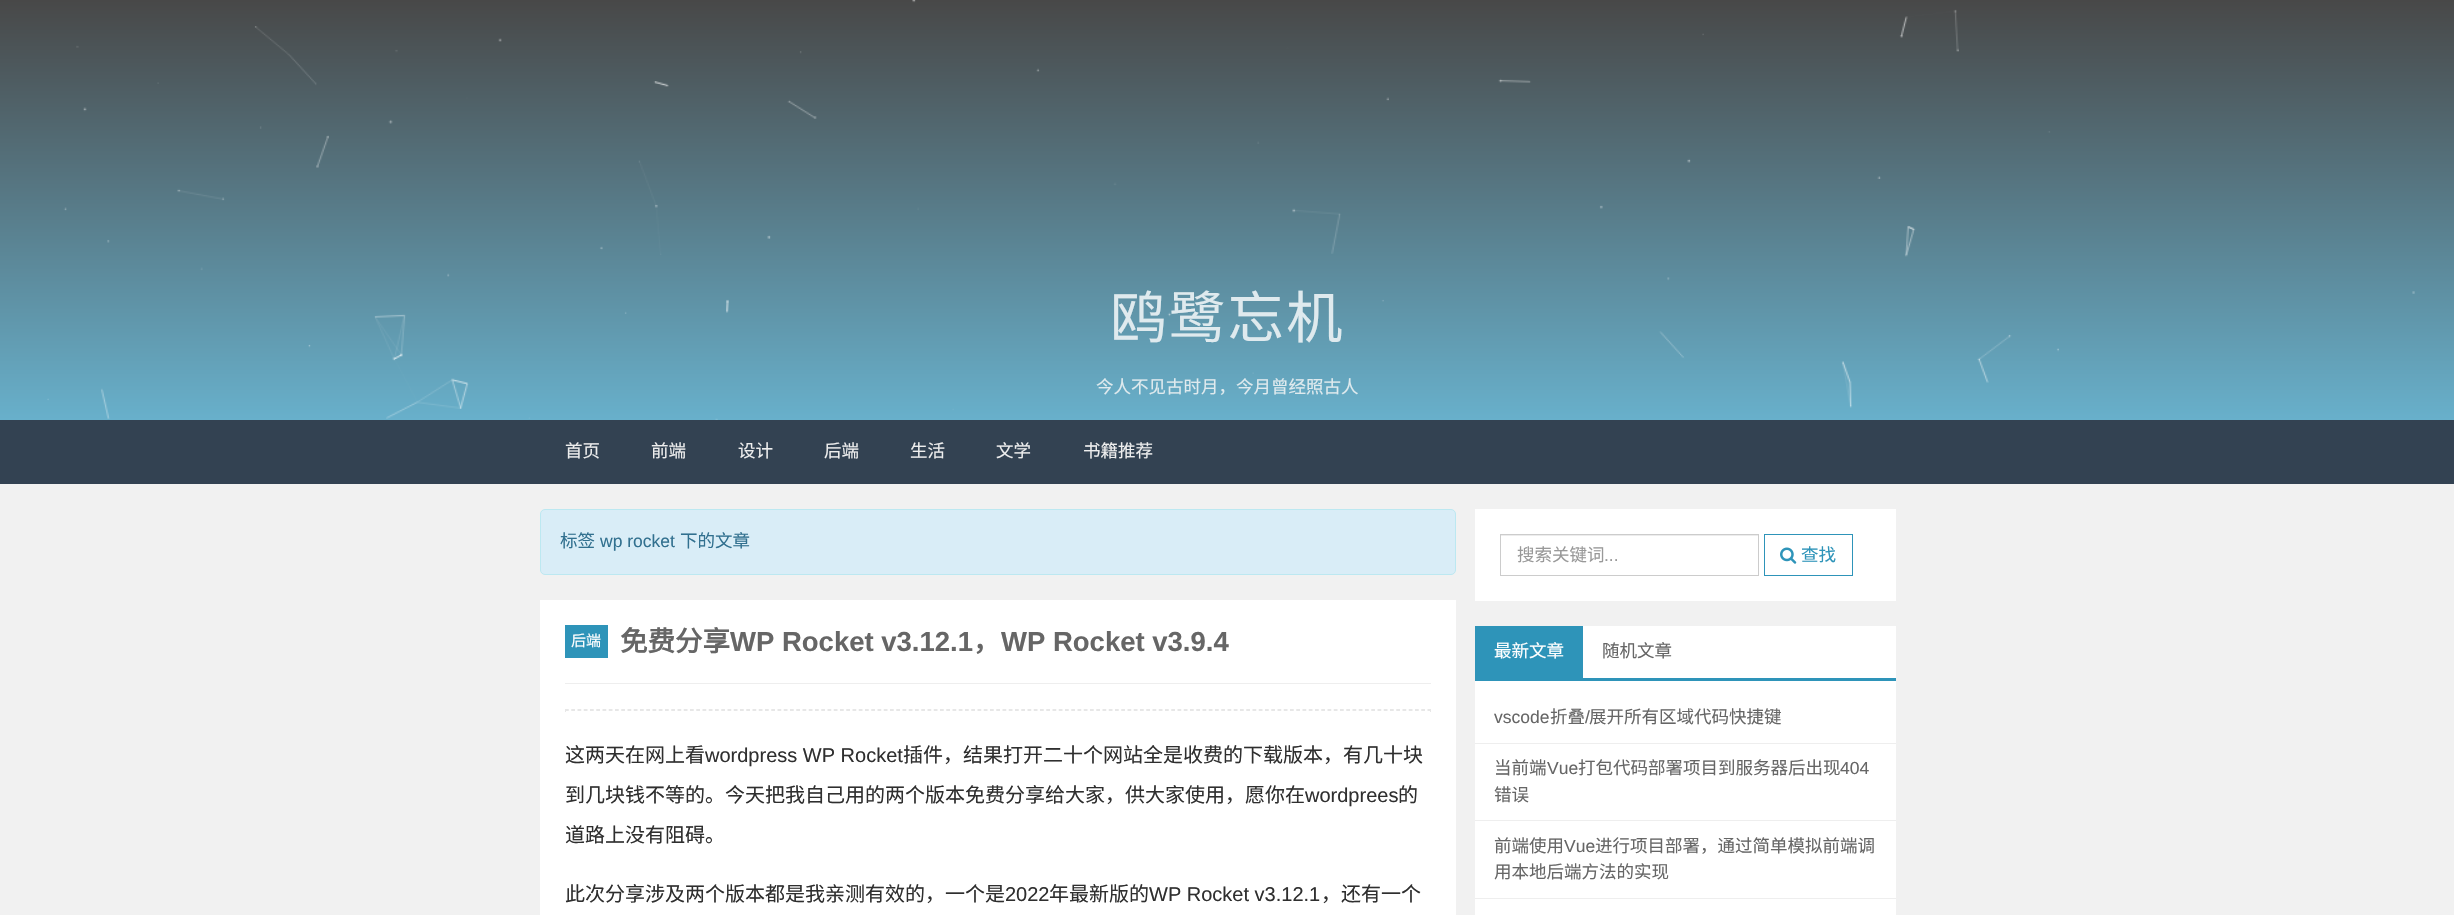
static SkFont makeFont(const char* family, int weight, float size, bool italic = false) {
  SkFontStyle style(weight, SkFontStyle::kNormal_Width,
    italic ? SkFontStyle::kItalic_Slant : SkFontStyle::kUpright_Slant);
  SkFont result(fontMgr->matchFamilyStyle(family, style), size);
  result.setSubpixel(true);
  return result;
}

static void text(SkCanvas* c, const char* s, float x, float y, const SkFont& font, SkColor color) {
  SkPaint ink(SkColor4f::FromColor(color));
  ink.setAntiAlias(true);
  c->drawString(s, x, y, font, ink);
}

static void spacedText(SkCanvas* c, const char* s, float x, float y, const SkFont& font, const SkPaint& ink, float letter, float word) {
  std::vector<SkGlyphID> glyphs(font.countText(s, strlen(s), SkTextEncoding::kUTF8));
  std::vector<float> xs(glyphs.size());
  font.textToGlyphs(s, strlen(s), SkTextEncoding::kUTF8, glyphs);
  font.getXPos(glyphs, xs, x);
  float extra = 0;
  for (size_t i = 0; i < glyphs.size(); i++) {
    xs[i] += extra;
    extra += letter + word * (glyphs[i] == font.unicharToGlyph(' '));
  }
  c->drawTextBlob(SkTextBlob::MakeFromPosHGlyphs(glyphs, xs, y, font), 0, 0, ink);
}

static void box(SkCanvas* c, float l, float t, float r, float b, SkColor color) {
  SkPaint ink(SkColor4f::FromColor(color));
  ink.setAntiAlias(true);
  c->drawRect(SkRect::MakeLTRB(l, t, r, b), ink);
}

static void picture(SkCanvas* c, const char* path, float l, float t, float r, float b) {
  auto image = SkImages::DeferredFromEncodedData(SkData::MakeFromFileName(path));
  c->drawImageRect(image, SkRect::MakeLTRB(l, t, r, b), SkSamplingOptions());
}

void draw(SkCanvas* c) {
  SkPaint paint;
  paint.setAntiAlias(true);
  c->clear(0xfff1f1f1);
  {
    const SkColor colors[] = {0xff484848, 0xff68b0cb};
    const float stops[] = {0, 1};
    const SkPoint ends[] = {{1228, 0}, {1228, 420}};
    paint.setShader(SkGradientShader::MakeLinear(ends, colors, stops, 2, SkTileMode::kClamp));
    paint.setAlpha(255);
  }
  c->drawRect(SkRect::MakeLTRB(0, 0, 2454, 420), paint);
  picture(c, "img_01.png", 47, 0, 2415, 420);
  SkFont face1 = makeFont("Noto Sans CJK SC", 400, 56.25f);
  paint.setShader(nullptr);
  paint.setColor(0xffdfeaee);
  spacedText(c, "鸥鹭忘机", 1110, 338, face1, paint, 2.5f, 0);
  SkFont face2 = makeFont("Noto Sans CJK SC", 400, 17.5f);
  text(c, "今人不见古时月，今月曾经照古人", 1096, 393, face2, 0xffdfeaee);
  box(c, 0, 420, 2454, 484, 0xff334252);
  text(c, "首页", 565, 457, face2, 0xffeeeeee);
  text(c, "前端", 651, 457, face2, 0xffeeeeee);
  text(c, "设计", 738, 457, face2, 0xffeeeeee);
  text(c, "后端", 824, 457, face2, 0xffeeeeee);
  text(c, "生活", 910, 457, face2, 0xffeeeeee);
  text(c, "文学", 996, 457, face2, 0xffeeeeee);
  text(c, "书籍推荐", 1083, 457, face2, 0xffeeeeee);
  paint.setColor(0xffd9edf7);
  c->drawRoundRect(SkRect::MakeLTRB(540.5f, 509.5f, 1455.5f, 574.5f), 4.5f, 4.5f, paint);
  paint.setStyle(SkPaint::kStroke_Style);
  paint.setStrokeWidth(1);
  paint.setColor(0xffbce8f1);
  c->drawRoundRect(SkRect::MakeLTRB(540.5f, 509.5f, 1455.5f, 574.5f), 4.5f, 4.5f, paint);
  text(c, "标签", 560, 547, face2, 0xff31708f);
  SkFont face3 = makeFont("Liberation Sans", 400, 17.5f);
  text(c, "wp rocket", 600, 547, face3, 0xff31708f);
  text(c, "下的文章", 680, 547, face2, 0xff31708f);
  box(c, 540, 600, 1456, 915, 0xffffffff);
  box(c, 565, 625, 608, 658, 0xff2e94b9);
  SkFont face4 = makeFont("Noto Sans CJK SC", 400, 15);
  text(c, "后端", 571, 646, face4, 0xffffffff);
  box(c, 565, 683, 1431, 684, 0xffeeeeee);
  SkFont face5 = makeFont("Noto Sans CJK SC", 700, 27.5f);
  text(c, "免费分享", 620, 651, face5, 0xff666666);
  SkFont face6 = makeFont("Liberation Sans", 700, 27.5f);
  text(c, "WP Rocket v3.12.1", 730, 651, face6, 0xff666666);
  text(c, "，", 973, 651, face5, 0xff666666);
  text(c, "WP Rocket v3.9.4", 1001, 651, face6, 0xff666666);
  paint.setStrokeWidth(1.2f);
  paint.setColor(0xffe7e7e7);
  paint.setPathEffect(SkDashPathEffect::Make({{3.75f, 2.5f}}, 0));
  c->drawPath(SkPathBuilder().moveTo(565, 709.5f).lineTo(1431, 709.5f).detach(), paint);
  paint.setPathEffect(nullptr);
  box(c, 1430, 709, 1431, 712, 0xffe7e7e7);
  paint.setPathEffect(SkDashPathEffect::Make({{3.75f, 2.5f}}, 0));
  c->drawPath(SkPathBuilder().moveTo(565, 710.5f).lineTo(1431, 710.5f).detach(), paint);
  paint.setPathEffect(nullptr);
  box(c, 565, 709, 566, 712, 0xffe7e7e7);
  SkFont face7 = makeFont("Noto Sans CJK SC", 400, 20);
  text(c, "这两天在网上看", 565, 762, face7, 0xff2f2f2f);
  SkFont face8 = makeFont("Liberation Sans", 400, 20);
  text(c, "wordpress WP Rocket", 705, 762, face8, 0xff2f2f2f);
  text(c, "插件，结果打开二十个网站全是收费的下载版本，有几十块", 903, 762, face7, 0xff2f2f2f);
  text(c, "到几块钱不等的。今天把我自己用的两个版本免费分享给大家，供大家使用，愿你在", 565, 802, face7, 0xff2f2f2f);
  text(c, "wordprees", 1305, 802, face8, 0xff2f2f2f);
  text(c, "的", 1398, 802, face7, 0xff2f2f2f);
  text(c, "道路上没有阻碍。", 565, 842, face7, 0xff2f2f2f);
  text(c, "此次分享涉及两个版本都是我亲测有效的，一个是", 565, 901, face7, 0xff2f2f2f);
  text(c, "2022", 1005, 901, face8, 0xff2f2f2f);
  text(c, "年最新版的", 1049, 901, face7, 0xff2f2f2f);
  text(c, "WP Rocket v3.12.1", 1149, 901, face8, 0xff2f2f2f);
  text(c, "，还有一个", 1321, 901, face7, 0xff2f2f2f);
  box(c, 1475, 509, 1896, 601, 0xffffffff);
  box(c, 1501, 535, 1758, 536, 0xffececec);
  paint.setStrokeWidth(1);
  paint.setColor(0xffcccccc);
  c->drawRect(SkRect::MakeLTRB(1500.5f, 534.5f, 1758.5f, 575.5f), paint);
  text(c, "搜索关键词", 1517, 561, face2, 0xff999999);
  text(c, "...", 1604, 561, face3, 0xff999999);
  paint.setColor(0xff2e94b9);
  c->drawRect(SkRect::MakeLTRB(1764.5f, 534.5f, 1852.5f, 575.5f), paint);
  picture(c, "img_02.png", 1780, 547, 1797, 564);
  text(c, "查找", 1801, 561, face2, 0xff2e94b9);
  box(c, 1475, 626, 1896, 915, 0xffffffff);
  box(c, 1475, 678, 1896, 681, 0xff2e94b9);
  box(c, 1475, 626, 1583, 678, 0xff2e94b9);
  text(c, "最新文章", 1494, 657, face2, 0xffffffff);
  text(c, "随机文章", 1602, 657, face2, 0xff666666);
  text(c, "vscode", 1494, 723, face3, 0xff666666);
  text(c, "折叠", 1550, 723, face2, 0xff666666);
  text(c, "/", 1585, 723, face3, 0xff666666);
  text(c, "展开所有区域代码快捷键", 1589, 723, face2, 0xff666666);
  box(c, 1475, 743, 1896, 744, 0xffeeeeee);
  text(c, "当前端", 1494, 774, face2, 0xff666666);
  text(c, "Vue", 1547, 774, face3, 0xff666666);
  text(c, "打包代码部署项目到服务器后出现", 1578, 774, face2, 0xff666666);
  text(c, "404", 1840, 774, face3, 0xff666666);
  text(c, "错误", 1494, 801, face2, 0xff666666);
  box(c, 1475, 820, 1896, 821, 0xffeeeeee);
  text(c, "前端使用", 1494, 852, face2, 0xff666666);
  text(c, "Vue", 1564, 852, face3, 0xff666666);
  text(c, "进行项目部署，通过简单模拟前端调", 1595, 852, face2, 0xff666666);
  text(c, "用本地后端方法的实现", 1494, 878, face2, 0xff666666);
  box(c, 1475, 898, 1896, 899, 0xffeeeeee);
}
